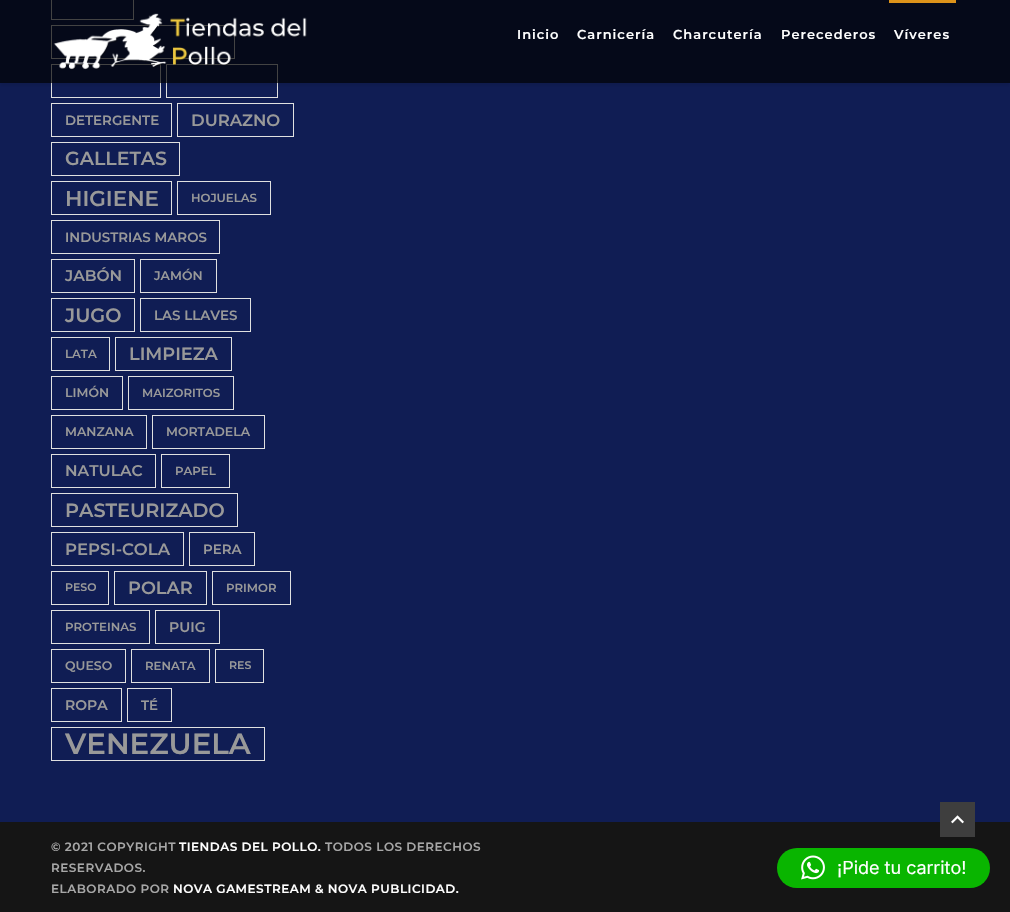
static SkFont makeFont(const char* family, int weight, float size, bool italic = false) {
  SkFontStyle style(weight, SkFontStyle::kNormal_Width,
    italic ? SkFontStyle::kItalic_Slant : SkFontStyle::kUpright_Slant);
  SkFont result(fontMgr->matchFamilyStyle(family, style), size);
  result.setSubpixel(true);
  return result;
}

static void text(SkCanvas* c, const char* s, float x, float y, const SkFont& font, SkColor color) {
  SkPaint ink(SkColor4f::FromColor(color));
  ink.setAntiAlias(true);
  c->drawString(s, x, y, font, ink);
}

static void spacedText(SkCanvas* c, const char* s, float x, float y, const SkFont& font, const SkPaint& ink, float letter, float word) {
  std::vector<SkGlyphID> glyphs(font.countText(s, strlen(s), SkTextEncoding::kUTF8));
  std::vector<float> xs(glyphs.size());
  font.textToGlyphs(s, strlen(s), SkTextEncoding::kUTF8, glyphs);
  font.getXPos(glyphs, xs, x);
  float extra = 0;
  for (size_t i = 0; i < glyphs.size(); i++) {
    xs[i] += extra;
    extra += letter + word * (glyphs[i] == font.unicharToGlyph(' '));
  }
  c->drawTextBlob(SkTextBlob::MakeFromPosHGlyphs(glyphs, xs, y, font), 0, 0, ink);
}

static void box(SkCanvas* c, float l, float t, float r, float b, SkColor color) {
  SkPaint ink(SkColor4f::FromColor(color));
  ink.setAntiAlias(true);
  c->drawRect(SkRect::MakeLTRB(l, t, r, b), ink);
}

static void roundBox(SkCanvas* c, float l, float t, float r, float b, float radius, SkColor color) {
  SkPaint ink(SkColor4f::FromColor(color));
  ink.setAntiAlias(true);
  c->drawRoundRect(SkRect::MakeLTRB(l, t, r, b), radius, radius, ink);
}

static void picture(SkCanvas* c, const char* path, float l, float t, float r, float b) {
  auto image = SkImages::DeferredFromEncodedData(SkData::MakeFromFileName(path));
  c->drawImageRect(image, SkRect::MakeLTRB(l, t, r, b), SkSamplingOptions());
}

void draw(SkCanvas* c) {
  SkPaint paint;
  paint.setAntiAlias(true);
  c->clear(0xff151515);
  box(c, 0, 0, 1010, 822, 0xff101d54);
  paint.setStyle(SkPaint::kStroke_Style);
  paint.setStrokeWidth(1);
  paint.setColor(0xffe0e0e0);
  c->drawRect(SkRect::MakeLTRB(51.5f, -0.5f, 133.5f, 19.5f), paint);
  c->drawRect(SkRect::MakeLTRB(51.5f, 25.5f, 234.5f, 58.5f), paint);
  c->drawRect(SkRect::MakeLTRB(51.5f, 64.5f, 160.5f, 97.5f), paint);
  c->drawRect(SkRect::MakeLTRB(166.5f, 64.5f, 277.5f, 97.5f), paint);
  c->save();
  c->clipRect(SkRect::MakeLTRB(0, 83, 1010, 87));
  paint.setStyle(SkPaint::kFill_Style);
  paint.setColor(0x1a000000);
  paint.setMaskFilter(SkMaskFilter::MakeBlur(kNormal_SkBlurStyle, 2));
  c->drawRect(SkRect::MakeLTRB(0, 2, 1010, 85), paint);
  paint.setMaskFilter(nullptr);
  c->restore();
  box(c, 0, 0, 1010, 83, 0xb3000000);
  picture(c, "img_01.png", 53, 13, 307, 70);
  SkFont face1 = makeFont("Montserrat", 600, 13);
  paint.setColor(0xffffffff);
  spacedText(c, "Inicio", 517, 39, face1, paint, 1, 0);
  spacedText(c, "Carnicería", 577, 39, face1, paint, 1, 0);
  spacedText(c, "Charcutería", 673, 39, face1, paint, 1, 0);
  spacedText(c, "Perecederos", 781, 39, face1, paint, 1, 0);
  box(c, 889, 0, 956, 3, 0xffdd931a);
  spacedText(c, "Víveres", 894, 39, face1, paint, 1, 0);
  paint.setStyle(SkPaint::kStroke_Style);
  paint.setColor(0xffe0e0e0);
  c->drawRect(SkRect::MakeLTRB(51.5f, 103.5f, 171.5f, 136.5f), paint);
  SkFont face2 = makeFont("Montserrat", 600, 13.4f);
  text(c, "DETERGENTE", 65, 125, face2, 0xff999999);
  c->drawRect(SkRect::MakeLTRB(177.5f, 103.5f, 293.5f, 136.5f), paint);
  SkFont face3 = makeFont("Montserrat", 600, 16.5f);
  text(c, "DURAZNO", 191, 126, face3, 0xff999999);
  c->drawRect(SkRect::MakeLTRB(51.5f, 142.5f, 179.5f, 175.5f), paint);
  SkFont face4 = makeFont("Montserrat", 600, 19);
  text(c, "GALLETAS", 65, 165, face4, 0xff999999);
  c->drawRect(SkRect::MakeLTRB(51.5f, 181.5f, 171.5f, 214.5f), paint);
  SkFont face5 = makeFont("Montserrat", 600, 21.5f);
  text(c, "HIGIENE", 65, 206, face5, 0xff999999);
  c->drawRect(SkRect::MakeLTRB(177.5f, 181.5f, 270.5f, 214.5f), paint);
  SkFont face6 = makeFont("Montserrat", 600, 11.75f);
  text(c, "HOJUELAS", 191, 202, face6, 0xff999999);
  c->drawRect(SkRect::MakeLTRB(51.5f, 220.5f, 219.5f, 253.5f), paint);
  text(c, "INDUSTRIAS MAROS", 65, 242, face2, 0xff999999);
  c->drawRect(SkRect::MakeLTRB(51.5f, 259.5f, 134.5f, 292.5f), paint);
  SkFont face7 = makeFont("Montserrat", 600, 15.5f);
  text(c, "JABÓN", 65, 281, face7, 0xff999999);
  c->drawRect(SkRect::MakeLTRB(140.5f, 259.5f, 216.5f, 292.5f), paint);
  SkFont face8 = makeFont("Montserrat", 600, 12.5f);
  text(c, "JAMÓN", 154, 280, face8, 0xff999999);
  c->drawRect(SkRect::MakeLTRB(51.5f, 298.5f, 134.5f, 331.5f), paint);
  SkFont face9 = makeFont("Montserrat", 600, 19.25f);
  text(c, "JUGO", 65, 322, face9, 0xff999999);
  c->drawRect(SkRect::MakeLTRB(140.5f, 298.5f, 250.5f, 331.5f), paint);
  text(c, "LAS LLAVES", 154, 320, face2, 0xff999999);
  c->drawRect(SkRect::MakeLTRB(51.5f, 337.5f, 109.5f, 370.5f), paint);
  text(c, "LATA", 65, 358, face6, 0xff999999);
  c->drawRect(SkRect::MakeLTRB(115.5f, 337.5f, 231.5f, 370.5f), paint);
  SkFont face10 = makeFont("Montserrat", 600, 17.75f);
  text(c, "LIMPIEZA", 129, 360, face10, 0xff999999);
  c->drawRect(SkRect::MakeLTRB(51.5f, 376.5f, 122.5f, 409.5f), paint);
  text(c, "LIMÓN", 65, 397, face8, 0xff999999);
  c->drawRect(SkRect::MakeLTRB(128.5f, 376.5f, 233.5f, 409.5f), paint);
  text(c, "MAIZORITOS", 142, 397, face6, 0xff999999);
  c->drawRect(SkRect::MakeLTRB(51.5f, 415.5f, 146.5f, 448.5f), paint);
  text(c, "MANZANA", 65, 436, face8, 0xff999999);
  c->drawRect(SkRect::MakeLTRB(152.5f, 415.5f, 264.5f, 448.5f), paint);
  text(c, "MORTADELA", 166, 436, face8, 0xff999999);
  c->drawRect(SkRect::MakeLTRB(51.5f, 454.5f, 155.5f, 487.5f), paint);
  text(c, "NATULAC", 65, 476, face7, 0xff999999);
  c->drawRect(SkRect::MakeLTRB(161.5f, 454.5f, 229.5f, 487.5f), paint);
  text(c, "PAPEL", 175, 475, face6, 0xff999999);
  c->drawRect(SkRect::MakeLTRB(51.5f, 493.5f, 237.5f, 526.5f), paint);
  text(c, "PASTEURIZADO", 65, 517, face9, 0xff999999);
  c->drawRect(SkRect::MakeLTRB(51.5f, 532.5f, 183.5f, 565.5f), paint);
  text(c, "PEPSI-COLA", 65, 555, face3, 0xff999999);
  c->drawRect(SkRect::MakeLTRB(189.5f, 532.5f, 254.5f, 565.5f), paint);
  text(c, "PERA", 203, 554, face2, 0xff999999);
  c->drawRect(SkRect::MakeLTRB(51.5f, 571.5f, 108.5f, 604.5f), paint);
  SkFont face11 = makeFont("Montserrat", 600, 11);
  text(c, "PESO", 65, 591, face11, 0xff999999);
  c->drawRect(SkRect::MakeLTRB(114.5f, 571.5f, 206.5f, 604.5f), paint);
  text(c, "POLAR", 128, 594, face10, 0xff999999);
  c->drawRect(SkRect::MakeLTRB(212.5f, 571.5f, 290.5f, 604.5f), paint);
  text(c, "PRIMOR", 226, 592, face6, 0xff999999);
  c->drawRect(SkRect::MakeLTRB(51.5f, 610.5f, 149.5f, 643.5f), paint);
  text(c, "PROTEINAS", 65, 631, face6, 0xff999999);
  c->drawRect(SkRect::MakeLTRB(155.5f, 610.5f, 219.5f, 643.5f), paint);
  SkFont face12 = makeFont("Montserrat", 600, 14);
  text(c, "PUIG", 169, 632, face12, 0xff999999);
  c->drawRect(SkRect::MakeLTRB(51.5f, 649.5f, 125.5f, 682.5f), paint);
  text(c, "QUESO", 65, 670, face8, 0xff999999);
  c->drawRect(SkRect::MakeLTRB(131.5f, 649.5f, 209.5f, 682.5f), paint);
  text(c, "RENATA", 145, 670, face6, 0xff999999);
  c->drawRect(SkRect::MakeLTRB(215.5f, 649.5f, 263.5f, 682.5f), paint);
  text(c, "RES", 229, 669, face11, 0xff999999);
  c->drawRect(SkRect::MakeLTRB(51.5f, 688.5f, 121.5f, 721.5f), paint);
  text(c, "ROPA", 65, 710, face12, 0xff999999);
  c->drawRect(SkRect::MakeLTRB(127.5f, 688.5f, 171.5f, 721.5f), paint);
  text(c, "TÉ", 141, 710, face2, 0xff999999);
  c->drawRect(SkRect::MakeLTRB(51.5f, 727.5f, 264.5f, 760.5f), paint);
  SkFont face13 = makeFont("Montserrat", 600, 29.25f);
  text(c, "VENEZUELA", 65, 754, face13, 0xff999999);
  SkFont face14 = makeFont("Montserrat", 600, 12);
  paint.setStyle(SkPaint::kFill_Style);
  paint.setColor(0xffa7a7a7);
  spacedText(c, "© 2021 COPYRIGHT", 51, 851, face14, paint, 0.5f, 0);
  paint.setColor(0xffffffff);
  spacedText(c, "TIENDAS DEL POLLO.", 179, 851, face14, paint, 0.5f, 0);
  paint.setColor(0xffa7a7a7);
  spacedText(c, "TODOS LOS DERECHOS", 325, 851, face14, paint, 0.5f, 0);
  spacedText(c, "RESERVADOS.", 51, 872, face14, paint, 0.5f, 0);
  spacedText(c, "ELABORADO POR", 51, 893, face14, paint, 0.5f, 0);
  paint.setColor(0xffffffff);
  spacedText(c, "NOVA GAMESTREAM & NOVA PUBLICIDAD.", 173, 893, face14, paint, 0.5f, 0);
  box(c, 940, 802, 975, 837, 0xff3e3e3e);
  picture(c, "img_02.png", 951, 815, 964, 824);
  roundBox(c, 777, 848, 990, 888, 20, 0xff09b500);
  picture(c, "img_03.png", 801, 855, 825, 880);
  SkFont face15 = makeFont("Inter", 400, 18);
  text(c, "¡Pide tu carrito!", 837, 874, face15, 0xffffffff);
}
